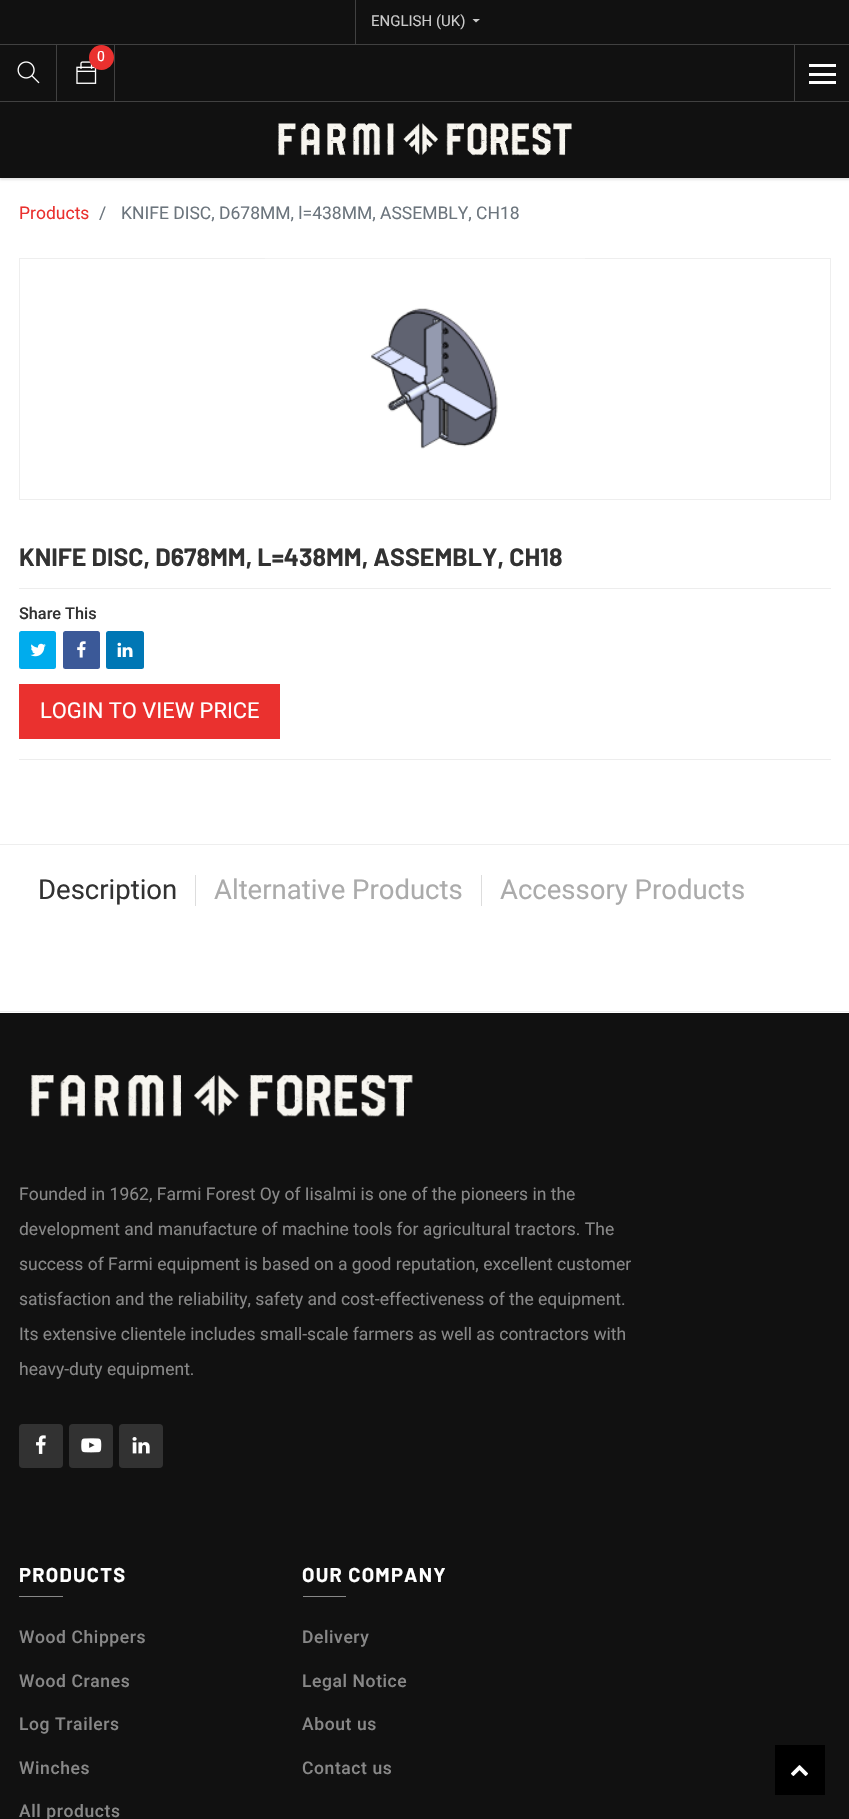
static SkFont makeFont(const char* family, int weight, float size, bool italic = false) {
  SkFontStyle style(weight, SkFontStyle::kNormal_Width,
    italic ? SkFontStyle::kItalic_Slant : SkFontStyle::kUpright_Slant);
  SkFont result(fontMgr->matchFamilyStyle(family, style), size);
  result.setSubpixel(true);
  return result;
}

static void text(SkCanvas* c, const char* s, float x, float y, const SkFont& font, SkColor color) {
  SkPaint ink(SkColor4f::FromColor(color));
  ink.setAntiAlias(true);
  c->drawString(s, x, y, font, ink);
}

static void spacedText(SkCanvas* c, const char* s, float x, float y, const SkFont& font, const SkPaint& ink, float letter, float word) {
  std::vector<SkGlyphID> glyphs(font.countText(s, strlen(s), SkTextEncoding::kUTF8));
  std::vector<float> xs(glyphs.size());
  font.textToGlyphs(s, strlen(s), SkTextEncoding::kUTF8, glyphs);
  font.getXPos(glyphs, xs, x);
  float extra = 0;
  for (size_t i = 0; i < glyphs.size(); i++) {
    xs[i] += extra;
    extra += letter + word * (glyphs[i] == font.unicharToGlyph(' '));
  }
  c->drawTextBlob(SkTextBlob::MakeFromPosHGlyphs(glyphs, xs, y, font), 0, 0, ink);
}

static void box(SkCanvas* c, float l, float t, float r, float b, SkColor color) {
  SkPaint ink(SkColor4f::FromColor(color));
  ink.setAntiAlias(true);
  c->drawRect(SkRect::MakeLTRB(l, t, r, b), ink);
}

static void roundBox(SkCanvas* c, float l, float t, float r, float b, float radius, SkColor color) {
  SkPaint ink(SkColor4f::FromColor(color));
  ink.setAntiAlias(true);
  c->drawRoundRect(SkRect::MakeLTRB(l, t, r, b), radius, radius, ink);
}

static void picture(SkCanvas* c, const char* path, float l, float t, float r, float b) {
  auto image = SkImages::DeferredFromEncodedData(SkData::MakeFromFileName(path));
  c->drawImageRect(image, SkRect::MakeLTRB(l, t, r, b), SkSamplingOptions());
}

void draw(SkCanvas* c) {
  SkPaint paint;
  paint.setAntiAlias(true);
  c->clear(0xffffffff);
  paint.setColor(0x1a000000);
  paint.setMaskFilter(SkMaskFilter::MakeBlur(kNormal_SkBlurStyle, 1));
  c->drawRect(SkRect::MakeLTRB(0, 3, 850, 180), paint);
  paint.setMaskFilter(nullptr);
  box(c, 0, 0, 849, 178, 0xff111111);
  box(c, 0, 101, 849, 102, 0xff414141);
  box(c, 0, 44, 849, 45, 0xff414141);
  box(c, 355, 0, 356, 44, 0xff414141);
  SkFont face1 = makeFont("Roboto", 400, 15);
  text(c, "ENGLISH (UK)", 371, 26, face1, 0xffcbcbcb);
  paint.setColor(0xffcbcbcb);
  c->drawPath(SkPathBuilder().moveTo(472.5f, 19).lineTo(480, 19).lineTo(476, 22.5f).close().detach(), paint);
  box(c, 56, 45, 57, 101, 0xff414141);
  picture(c, "img_01.png", 17, 61, 40, 84);
  box(c, 114, 45, 115, 101, 0xff414141);
  picture(c, "img_02.png", 76, 61, 97, 84);
  paint.setColor(0xffea312f);
  c->drawCircle(101.5f, 57.5f, 12.5f, paint);
  SkFont face2 = makeFont("Roboto", 400, 14);
  text(c, "0", 97, 61, face2, 0xffffffff);
  box(c, 794, 45, 795, 101, 0xff414141);
  box(c, 809, 64, 836, 67, 0xffffffff);
  box(c, 809, 81, 836, 84, 0xffffffff);
  box(c, 809, 73, 836, 76, 0xffffffff);
  picture(c, "img_03.png", 278, 123, 572, 156);
  SkFont face3 = makeFont("Roboto", 400, 17.5f);
  text(c, "Products", 19, 219, face3, 0xffea312f);
  text(c, "/", 99, 219, face3, 0xff6c757d);
  text(c, "KNIFE DISC, D678MM, l=438MM, ASSEMBLY, CH18", 121, 219, face3, 0xff6c757d);
  paint.setStyle(SkPaint::kStroke_Style);
  paint.setStrokeWidth(1);
  paint.setColor(0xffeeeeee);
  c->drawRect(SkRect::MakeLTRB(19.5f, 258.5f, 830.5f, 499.5f), paint);
  picture(c, "img_04.png", 265, 258, 585, 449);
  SkFont face4 = makeFont("Barlow", 700, 25);
  text(c, "KNIFE DISC, D678MM, L=438MM, ASSEMBLY, CH18", 19, 566, face4, 0xff323232);
  box(c, 19, 588, 831, 589, 0xffededed);
  SkFont face5 = makeFont("Roboto", 500, 16.25f);
  text(c, "Share This", 19, 619, face5, 0xff323232);
  roundBox(c, 19, 631, 56, 669, 2.5f, 0xff00aced);
  picture(c, "img_05.png", 30, 643, 46, 657);
  roundBox(c, 63, 631, 100, 669, 2.5f, 0xff3b5998);
  picture(c, "img_06.png", 77, 641, 86, 658);
  roundBox(c, 106, 631, 144, 669, 2.5f, 0xff0077b5);
  picture(c, "img_07.png", 117, 642, 133, 657);
  box(c, 19, 684, 280, 739, 0xffea312f);
  SkFont face6 = makeFont("Roboto", 400, 21.9f);
  text(c, "LOGIN TO VIEW PRICE", 40, 718, face6, 0xffffffff);
  box(c, 19, 759, 831, 760, 0xffededed);
  box(c, 0, 844, 849, 845, 0xffeeeeee);
  box(c, 0, 1011, 849, 1012, 0xffeeeeee);
  SkFont face7 = makeFont("Roboto", 400, 27.5f);
  text(c, "Description", 38, 899, face7, 0xff323232);
  box(c, 195, 875, 196, 906, 0xffdddddd);
  text(c, "Alternative Products", 214, 899, face7, 0xffababab);
  box(c, 481, 875, 482, 906, 0xffdddddd);
  text(c, "Accessory Products", 500, 899, face7, 0xffababab);
  box(c, 0, 1013, 849, 1819, 0xff111111);
  picture(c, "img_08.png", 31, 1075, 413, 1117);
  text(c, "Founded in 1962, Farmi Forest Oy of Iisalmi is one of the pioneers in the", 19, 1200, face3, 0xff888888);
  text(c, "development and manufacture of machine tools for agricultural tractors. The", 19, 1235, face3, 0xff888888);
  text(c, "success of Farmi equipment is based on a good reputation, excellent customer", 19, 1270, face3, 0xff888888);
  text(c, "satisfaction and the reliability, safety and cost-effectiveness of the equipment.", 19, 1305, face3, 0xff888888);
  text(c, "Its extensive clientele includes small-scale farmers as well as contractors with", 19, 1340, face3, 0xff888888);
  text(c, "heavy-duty equipment.", 19, 1375, face3, 0xff888888);
  roundBox(c, 19, 1424, 63, 1468, 4, 0xff323232);
  picture(c, "img_09.png", 36, 1435, 46, 1454);
  roundBox(c, 69, 1424, 113, 1468, 4, 0xff323232);
  picture(c, "img_10.png", 81, 1438, 102, 1453);
  roundBox(c, 119, 1424, 163, 1468, 4, 0xff323232);
  picture(c, "img_11.png", 132, 1437, 150, 1454);
  SkFont face8 = makeFont("Barlow", 700, 20);
  paint.setStyle(SkPaint::kFill_Style);
  paint.setColor(0xffffffff);
  spacedText(c, "PRODUCTS", 19, 1582, face8, paint, 1.25f, 0);
  box(c, 19, 1596, 63, 1597, 0xff888888);
  SkFont face9 = makeFont("Roboto", 500, 17.5f);
  paint.setColor(0xff888888);
  spacedText(c, "Wood Chippers", 19, 1643, face9, paint, 0.6f, 0);
  spacedText(c, "Wood Cranes", 19, 1687, face9, paint, 0.6f, 0);
  spacedText(c, "Log Trailers", 19, 1730, face9, paint, 0.6f, 0);
  spacedText(c, "Winches", 19, 1774, face9, paint, 0.6f, 0);
  spacedText(c, "All products", 19, 1817, face9, paint, 0.6f, 0);
  paint.setColor(0xffffffff);
  spacedText(c, "OUR COMPANY", 302, 1582, face8, paint, 1.25f, 0);
  box(c, 303, 1596, 346, 1597, 0xff888888);
  paint.setColor(0xff888888);
  spacedText(c, "Delivery", 302, 1643, face9, paint, 0.6f, 0);
  spacedText(c, "Legal Notice", 302, 1687, face9, paint, 0.6f, 0);
  spacedText(c, "About us", 302, 1730, face9, paint, 0.6f, 0);
  spacedText(c, "Contact us", 302, 1774, face9, paint, 0.6f, 0);
  box(c, 775, 1745, 825, 1795, 0xff000000);
  picture(c, "img_12.png", 791, 1765, 808, 1776);
}
